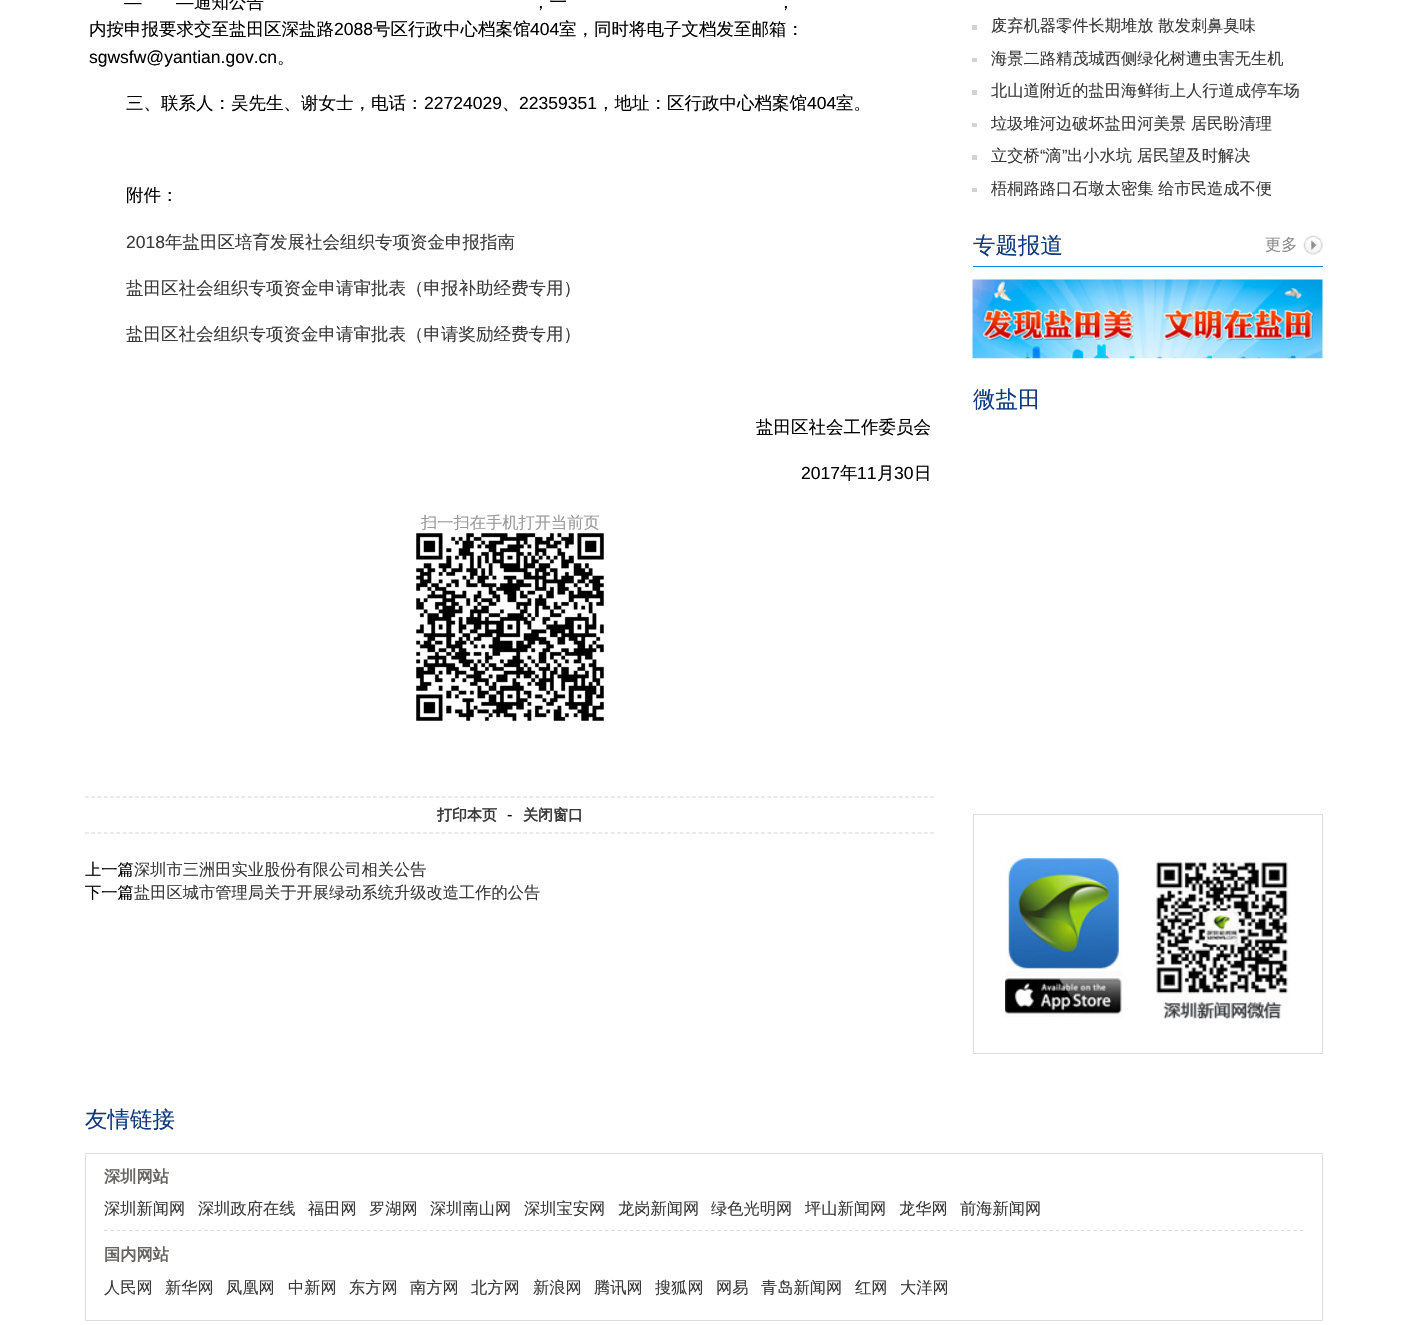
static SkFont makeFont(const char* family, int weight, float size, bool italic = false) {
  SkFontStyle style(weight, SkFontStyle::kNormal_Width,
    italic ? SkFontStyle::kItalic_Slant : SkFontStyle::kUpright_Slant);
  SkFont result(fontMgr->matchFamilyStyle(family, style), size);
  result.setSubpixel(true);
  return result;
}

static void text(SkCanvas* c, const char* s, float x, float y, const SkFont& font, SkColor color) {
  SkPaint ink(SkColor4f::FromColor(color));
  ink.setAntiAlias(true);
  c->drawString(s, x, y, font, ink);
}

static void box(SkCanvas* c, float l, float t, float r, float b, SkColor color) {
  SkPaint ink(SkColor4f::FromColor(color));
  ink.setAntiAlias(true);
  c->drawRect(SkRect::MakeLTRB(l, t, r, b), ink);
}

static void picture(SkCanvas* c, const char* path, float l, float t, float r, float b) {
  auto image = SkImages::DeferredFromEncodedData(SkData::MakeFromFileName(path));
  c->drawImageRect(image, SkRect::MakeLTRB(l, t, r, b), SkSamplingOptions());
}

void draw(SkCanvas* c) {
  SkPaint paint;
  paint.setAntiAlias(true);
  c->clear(0xffffffff);
  SkFont face1 = makeFont("Liberation Sans", 400, 17.5f);
  text(c, "—", 124, 8, face1, 0xff000000);
  text(c, "—", 176, 8, face1, 0xff000000);
  SkFont face2 = makeFont("WenQuanYi Zen Hei", 500, 17.5f);
  text(c, "通知公告", 194, 8, face2, 0xff000000);
  text(c, "，一", 532, 8, face2, 0xff000000);
  text(c, "，", 777, 8, face2, 0xff000000);
  text(c, "内按申报要求交至盐田区深盐路", 89, 35, face2, 0xff000000);
  text(c, "2088", 334, 35, face1, 0xff000000);
  text(c, "号区行政中心档案馆", 373, 35, face2, 0xff000000);
  text(c, "404", 530, 35, face1, 0xff000000);
  text(c, "室，同时将电子文档发至邮箱：", 559, 35, face2, 0xff000000);
  text(c, "sgwsfw@yantian.gov.cn", 89, 63, face1, 0xff000000);
  text(c, "。", 277, 63, face2, 0xff000000);
  text(c, "三、联系人：吴先生、谢女士，电话：", 126, 109, face2, 0xff000000);
  text(c, "22724029", 424, 109, face1, 0xff000000);
  text(c, "、", 502, 109, face2, 0xff000000);
  text(c, "22359351", 519, 109, face1, 0xff000000);
  text(c, "，地址：区行政中心档案馆", 597, 109, face2, 0xff000000);
  text(c, "404", 807, 109, face1, 0xff000000);
  text(c, "室。", 836, 109, face2, 0xff000000);
  text(c, "附件：", 126, 201, face2, 0xff000000);
  text(c, "2018", 126, 248, face1, 0xff3a3a3a);
  text(c, "年盐田区培育发展社会组织专项资金申报指南", 165, 248, face2, 0xff3a3a3a);
  text(c, "盐田区社会组织专项资金申请审批表（申报补助经费专用）", 126, 294, face2, 0xff3a3a3a);
  text(c, "盐田区社会组织专项资金申请审批表（申请奖励经费专用）", 126, 340, face2, 0xff3a3a3a);
  text(c, "盐田区社会工作委员会", 756, 433, face2, 0xff000000);
  text(c, "2017", 801, 479, face1, 0xff000000);
  text(c, "年", 840, 479, face2, 0xff000000);
  text(c, "11", 857, 479, face1, 0xff000000);
  text(c, "月", 877, 479, face2, 0xff000000);
  text(c, "30", 894, 479, face1, 0xff000000);
  text(c, "日", 914, 479, face2, 0xff000000);
  SkFont face3 = makeFont("WenQuanYi Zen Hei", 500, 16.25f);
  text(c, "扫一扫在手机打开当前页", 421, 528, face3, 0xff999999);
  picture(c, "img_01.png", 416, 533, 604, 721);
  paint.setStyle(SkPaint::kStroke_Style);
  paint.setStrokeWidth(1.2f);
  paint.setColor(0xffd6d6d6);
  paint.setPathEffect(SkDashPathEffect::Make({{3.75f, 2.51f}}, 0));
  c->drawPath(SkPathBuilder().moveTo(85, 797).lineTo(935, 797).detach(), paint);
  paint.setPathEffect(nullptr);
  paint.setPathEffect(SkDashPathEffect::Make({{3.75f, 2.51f}}, 0));
  c->drawPath(SkPathBuilder().moveTo(85, 833).lineTo(935, 833).detach(), paint);
  paint.setPathEffect(nullptr);
  SkFont face4 = makeFont("WenQuanYi Zen Hei", 700, 15);
  text(c, "打印本页", 437, 820, face4, 0xff3a3a3a);
  SkFont face5 = makeFont("Liberation Sans", 400, 16.25f);
  text(c, "-", 507, 820, face5, 0xff000000);
  text(c, "关闭窗口", 523, 820, face4, 0xff3a3a3a);
  text(c, "上一篇", 85, 875, face3, 0xff000000);
  text(c, "深圳市三洲田实业股份有限公司相关公告", 134, 875, face3, 0xff3a3a3a);
  text(c, "下一篇", 85, 898, face3, 0xff000000);
  text(c, "盐田区城市管理局关于开展绿动系统升级改造工作的公告", 134, 898, face3, 0xff3a3a3a);
  box(c, 972, 25, 977, 30, 0xffd3d3d3);
  text(c, "废弃机器零件长期堆放 散发刺鼻臭味", 991, 31, face3, 0xff3a3a3a);
  box(c, 972, 58, 977, 62, 0xffd3d3d3);
  text(c, "海景二路精茂城西侧绿化树遭虫害无生机", 991, 64, face3, 0xff3a3a3a);
  box(c, 972, 90, 977, 95, 0xffd3d3d3);
  text(c, "北山道附近的盐田海鲜街上人行道成停车场", 991, 96, face3, 0xff3a3a3a);
  box(c, 972, 123, 977, 127, 0xffd3d3d3);
  text(c, "垃圾堆河边破坏盐田河美景 居民盼清理", 991, 129, face3, 0xff3a3a3a);
  box(c, 972, 155, 977, 160, 0xffd3d3d3);
  text(c, "立交桥", 991, 161, face3, 0xff3a3a3a);
  text(c, "“", 1040, 161, face5, 0xff3a3a3a);
  text(c, "滴", 1045, 161, face3, 0xff3a3a3a);
  text(c, "”", 1062, 161, face5, 0xff3a3a3a);
  text(c, "出小水坑 居民望及时解决", 1067, 161, face3, 0xff3a3a3a);
  box(c, 972, 188, 977, 192, 0xffd3d3d3);
  text(c, "梧桐路路口石墩太密集 给市民造成不便", 991, 194, face3, 0xff3a3a3a);
  box(c, 973, 266, 1323, 267, 0xff028ae9);
  SkFont face6 = makeFont("WenQuanYi Zen Hei", 500, 22.5f);
  text(c, "专题报道", 973, 253, face6, 0xff0e397d);
  picture(c, "img_02.png", 1303, 235, 1323, 255);
  text(c, "更多", 1265, 250, face3, 0xff8e8e8e);
  picture(c, "img_03.png", 972, 279, 1323, 359);
  text(c, "微盐田", 973, 407, face6, 0xff0e397d);
  paint.setStrokeWidth(1);
  paint.setColor(0xffdddddd);
  c->drawRect(SkRect::MakeLTRB(973.5f, 814.5f, 1322.5f, 1053.5f), paint);
  picture(c, "img_04.png", 1005, 858, 1123, 1017);
  picture(c, "img_05.png", 1153, 858, 1290, 1019);
  text(c, "友情链接", 85, 1127, face6, 0xff0e397d);
  c->drawRect(SkRect::MakeLTRB(85.5f, 1153.5f, 1322.5f, 1320.5f), paint);
  paint.setStrokeWidth(1.2f);
  paint.setPathEffect(SkDashPathEffect::Make({{3.75f, 2.51f}}, 0));
  c->drawPath(SkPathBuilder().moveTo(104, 1230.5f).lineTo(1304, 1230.5f).detach(), paint);
  paint.setPathEffect(nullptr);
  SkFont face7 = makeFont("WenQuanYi Zen Hei", 700, 16.25f);
  text(c, "深圳网站", 104, 1182, face7, 0xff686464);
  text(c, "深圳新闻网", 104, 1214, face3, 0xff3a3a3a);
  text(c, "深圳政府在线", 198, 1214, face3, 0xff3a3a3a);
  text(c, "福田网", 308, 1214, face3, 0xff3a3a3a);
  text(c, "罗湖网", 369, 1214, face3, 0xff3a3a3a);
  text(c, "深圳南山网", 430, 1214, face3, 0xff3a3a3a);
  text(c, "深圳宝安网", 524, 1214, face3, 0xff3a3a3a);
  text(c, "龙岗新闻网", 618, 1214, face3, 0xff3a3a3a);
  text(c, "绿色光明网", 711, 1214, face3, 0xff3a3a3a);
  text(c, "坪山新闻网", 805, 1214, face3, 0xff3a3a3a);
  text(c, "龙华网", 899, 1214, face3, 0xff3a3a3a);
  text(c, "前海新闻网", 960, 1214, face3, 0xff3a3a3a);
  text(c, "国内网站", 104, 1260, face7, 0xff686464);
  text(c, "人民网", 104, 1293, face3, 0xff3a3a3a);
  text(c, "新华网", 165, 1293, face3, 0xff3a3a3a);
  text(c, "凤凰网", 226, 1293, face3, 0xff3a3a3a);
  text(c, "中新网", 288, 1293, face3, 0xff3a3a3a);
  text(c, "东方网", 349, 1293, face3, 0xff3a3a3a);
  text(c, "南方网", 410, 1293, face3, 0xff3a3a3a);
  text(c, "北方网", 471, 1293, face3, 0xff3a3a3a);
  text(c, "新浪网", 533, 1293, face3, 0xff3a3a3a);
  text(c, "腾讯网", 594, 1293, face3, 0xff3a3a3a);
  text(c, "搜狐网", 655, 1293, face3, 0xff3a3a3a);
  text(c, "网易", 716, 1293, face3, 0xff3a3a3a);
  text(c, "青岛新闻网", 761, 1293, face3, 0xff3a3a3a);
  text(c, "红网", 855, 1293, face3, 0xff3a3a3a);
  text(c, "大洋网", 900, 1293, face3, 0xff3a3a3a);
}
